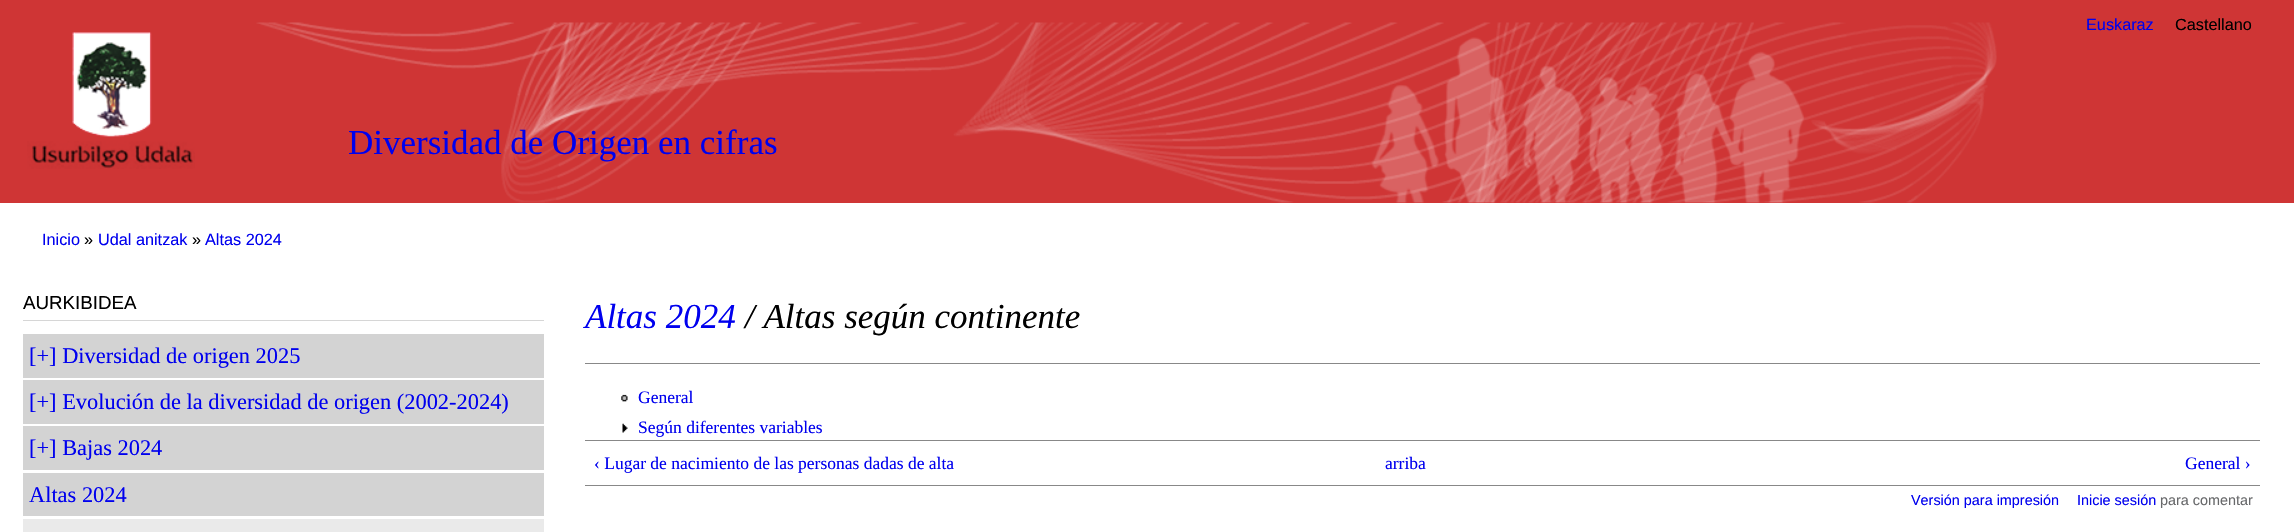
static SkFont makeFont(const char* family, int weight, float size, bool italic = false) {
  SkFontStyle style(weight, SkFontStyle::kNormal_Width,
    italic ? SkFontStyle::kItalic_Slant : SkFontStyle::kUpright_Slant);
  SkFont result(fontMgr->matchFamilyStyle(family, style), size);
  result.setSubpixel(true);
  return result;
}

static void text(SkCanvas* c, const char* s, float x, float y, const SkFont& font, SkColor color) {
  SkPaint ink(SkColor4f::FromColor(color));
  ink.setAntiAlias(true);
  c->drawString(s, x, y, font, ink);
}

static void box(SkCanvas* c, float l, float t, float r, float b, SkColor color) {
  SkPaint ink(SkColor4f::FromColor(color));
  ink.setAntiAlias(true);
  c->drawRect(SkRect::MakeLTRB(l, t, r, b), ink);
}

static void picture(SkCanvas* c, const char* path, float l, float t, float r, float b) {
  auto image = SkImages::DeferredFromEncodedData(SkData::MakeFromFileName(path));
  c->drawImageRect(image, SkRect::MakeLTRB(l, t, r, b), SkSamplingOptions());
}

void draw(SkCanvas* c) {
  SkPaint paint;
  paint.setAntiAlias(true);
  c->clear(0xffffffff);
  box(c, 0, 0, 2294, 203, 0xffcf3535);
  picture(c, "img_01.png", 256, 22, 1997, 203);
  SkFont face1 = makeFont("Liberation Sans", 400, 16.25f);
  text(c, "Euskaraz", 2086, 30, face1, 0xff0000ee);
  text(c, "Castellano", 2175, 30, face1, 0xff000000);
  picture(c, "img_02.png", 27, 32, 195, 169);
  SkFont face2 = makeFont("Liberation Serif", 400, 35);
  text(c, "Diversidad de Origen en cifras", 348, 154, face2, 0xff0000ee);
  text(c, "Inicio", 42, 245, face1, 0xff0000ee);
  text(c, "»", 84, 245, face1, 0xff000000);
  text(c, "Udal anitzak", 98, 245, face1, 0xff0000ee);
  text(c, "»", 192, 245, face1, 0xff000000);
  text(c, "Altas 2024", 205, 245, face1, 0xff0000ee);
  box(c, 23, 320, 544, 321, 0xffd6d6d6);
  SkFont face3 = makeFont("Liberation Sans", 400, 18.75f);
  text(c, "AURKIBIDEA", 23, 309, face3, 0xff000000);
  box(c, 23, 334, 544, 378, 0xffd3d3d3);
  SkFont face4 = makeFont("Liberation Serif", 400, 22.4f);
  text(c, "[+] Diversidad de origen 2025", 29, 363, face4, 0xff0000ee);
  box(c, 23, 380, 544, 424, 0xffd3d3d3);
  text(c, "[+] Evolución de la diversidad de origen (2002-2024)", 29, 409, face4, 0xff0000ee);
  box(c, 23, 426, 544, 470, 0xffd3d3d3);
  text(c, "[+] Bajas 2024", 29, 455, face4, 0xff0000ee);
  box(c, 23, 473, 544, 516, 0xffd3d3d3);
  text(c, "Altas 2024", 29, 502, face4, 0xff0000ee);
  box(c, 23, 519, 544, 532, 0xffeaeaea);
  SkFont face5 = makeFont("Liberation Serif", 400, 35, true);
  text(c, "Altas 2024", 585, 328, face5, 0xff0000ee);
  text(c, "/ Altas según continente", 745, 328, face5, 0xff000000);
  box(c, 585, 363, 2260, 364, 0xff888888);
  picture(c, "img_03.png", 621, 394, 628, 402);
  SkFont face6 = makeFont("Liberation Serif", 400, 17.5f);
  text(c, "General", 638, 403, face6, 0xff0000ee);
  picture(c, "img_04.png", 622, 423, 628, 433);
  text(c, "Según diferentes variables", 638, 433, face6, 0xff0000ee);
  box(c, 585, 440, 2260, 441, 0xff888888);
  box(c, 585, 485, 2260, 486, 0xff888888);
  text(c, "‹ Lugar de nacimiento de las personas dadas de alta", 594, 469, face6, 0xff0000ee);
  text(c, "arriba", 1385, 469, face6, 0xff0000ee);
  text(c, "General ›", 2185, 469, face6, 0xff0000ee);
  SkFont face7 = makeFont("Liberation Sans", 400, 14.4f);
  text(c, "Versión para impresión", 1911, 505, face7, 0xff0000ee);
  text(c, "Inicie sesión", 2077, 505, face7, 0xff0000ee);
  text(c, "para comentar", 2160, 505, face7, 0xff68696b);
}
